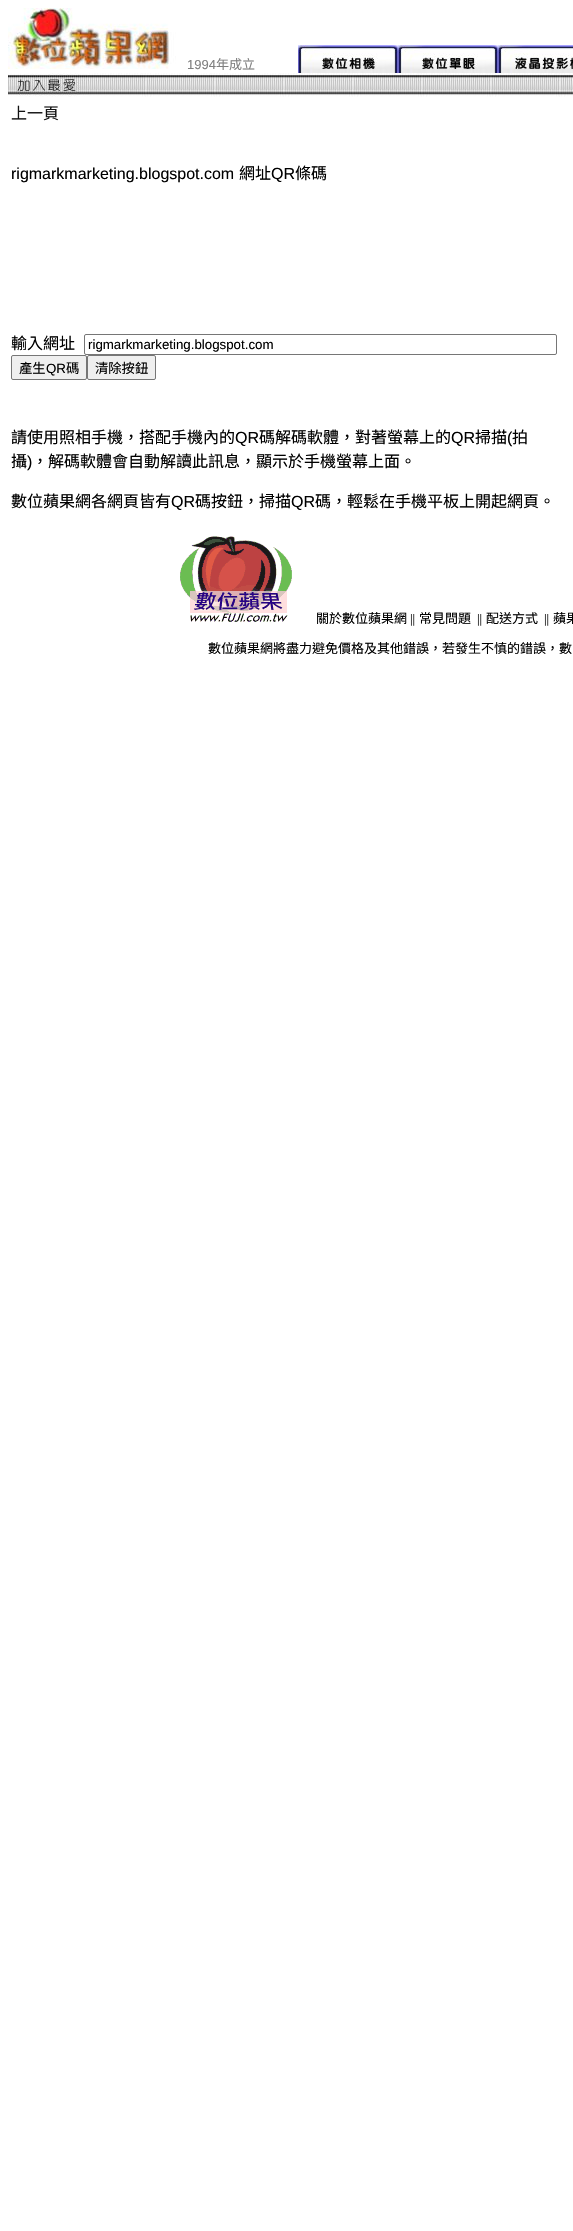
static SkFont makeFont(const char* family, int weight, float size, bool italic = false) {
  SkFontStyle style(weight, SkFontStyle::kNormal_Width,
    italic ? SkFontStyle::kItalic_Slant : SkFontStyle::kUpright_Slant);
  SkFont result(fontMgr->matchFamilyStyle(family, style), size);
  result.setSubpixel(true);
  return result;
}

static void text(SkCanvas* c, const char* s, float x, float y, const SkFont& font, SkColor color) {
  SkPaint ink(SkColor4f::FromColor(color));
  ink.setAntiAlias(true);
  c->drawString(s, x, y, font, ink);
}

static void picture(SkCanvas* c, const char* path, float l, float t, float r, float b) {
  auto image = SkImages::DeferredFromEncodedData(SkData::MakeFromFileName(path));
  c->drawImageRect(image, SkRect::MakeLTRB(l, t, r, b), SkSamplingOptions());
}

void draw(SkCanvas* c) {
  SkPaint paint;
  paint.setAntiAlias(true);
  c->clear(0xffffffff);
  picture(c, "img_01.png", 8, 8, 176, 69);
  SkFont face1 = makeFont("Liberation Sans", 400, 13);
  text(c, "1994", 187, 69, face1, 0xff808080);
  SkFont face2 = makeFont("Noto Sans CJK TC", 400, 13);
  text(c, "年成立", 216, 69, face2, 0xff808080);
  picture(c, "img_02.png", 298, 45, 398, 73);
  picture(c, "img_03.png", 398, 45, 498, 73);
  picture(c, "img_04.png", 498, 45, 573, 73);
  picture(c, "img_05.png", 88, 73, 573, 97);
  picture(c, "img_06.png", 8, 73, 88, 97);
  SkFont face3 = makeFont("Noto Sans CJK TC", 400, 16);
  text(c, "上一頁", 11, 119, face3, 0xff111111);
  SkFont face4 = makeFont("Liberation Sans", 400, 16);
  text(c, "rigmarkmarketing.blogspot.com", 11, 179, face4, 0xff000000);
  text(c, "網址", 239, 179, face3, 0xff000000);
  text(c, "QR", 271, 179, face4, 0xff000000);
  text(c, "條碼", 295, 179, face3, 0xff000000);
  text(c, "輸入網址", 11, 349, face3, 0xff000000);
  paint.setStyle(SkPaint::kStroke_Style);
  paint.setStrokeWidth(1);
  paint.setColor(0xff767676);
  c->drawRoundRect(SkRect::MakeLTRB(84.5f, 334.5f, 556.5f, 354.5f), 1.5f, 1.5f, paint);
  SkFont face5 = makeFont("Liberation Sans", 400, 13.3f);
  text(c, "rigmarkmarketing.blogspot.com", 88, 349, face5, 0xff000000);
  paint.setStyle(SkPaint::kFill_Style);
  paint.setColor(0xffefefef);
  c->drawRoundRect(SkRect::MakeLTRB(11.5f, 355.5f, 86.5f, 379.5f), 1.5f, 1.5f, paint);
  paint.setStyle(SkPaint::kStroke_Style);
  paint.setColor(0xff767676);
  c->drawRoundRect(SkRect::MakeLTRB(11.5f, 355.5f, 86.5f, 379.5f), 1.5f, 1.5f, paint);
  SkFont face6 = makeFont("Noto Sans CJK TC", 400, 13.3f);
  text(c, "產生", 19, 373, face6, 0xff000000);
  text(c, "QR", 46, 373, face5, 0xff000000);
  text(c, "碼", 66, 373, face6, 0xff000000);
  paint.setStyle(SkPaint::kFill_Style);
  paint.setColor(0xffefefef);
  c->drawRoundRect(SkRect::MakeLTRB(87.5f, 355.5f, 155.5f, 379.5f), 1.5f, 1.5f, paint);
  paint.setStyle(SkPaint::kStroke_Style);
  paint.setColor(0xff767676);
  c->drawRoundRect(SkRect::MakeLTRB(87.5f, 355.5f, 155.5f, 379.5f), 1.5f, 1.5f, paint);
  text(c, "清除按鈕", 95, 373, face6, 0xff000000);
  text(c, "請使用照相手機，搭配手機內的", 11, 443, face3, 0xff000000);
  text(c, "QR", 235, 443, face4, 0xff000000);
  text(c, "碼解碼軟體，對著螢幕上的", 259, 443, face3, 0xff000000);
  text(c, "QR", 451, 443, face4, 0xff000000);
  text(c, "掃描", 475, 443, face3, 0xff000000);
  text(c, "(", 507, 443, face4, 0xff000000);
  text(c, "拍", 512, 443, face3, 0xff000000);
  text(c, "攝", 11, 467, face3, 0xff000000);
  text(c, ")", 27, 467, face4, 0xff000000);
  text(c, "，解碼軟體會自動解讀此訊息，顯示於手機螢幕上面。", 32, 467, face3, 0xff000000);
  text(c, "數位蘋果網各網頁皆有", 11, 507, face3, 0xff000000);
  text(c, "QR", 171, 507, face4, 0xff000000);
  text(c, "碼按鈕，掃描", 195, 507, face3, 0xff000000);
  text(c, "QR", 291, 507, face4, 0xff000000);
  text(c, "碼，輕鬆在手機平板上開起網頁。", 315, 507, face3, 0xff000000);
  picture(c, "img_07.png", 180, 536, 292, 622);
  text(c, "關於數位蘋果網", 316, 623, face2, 0xff000000);
  SkFont face7 = makeFont("Liberation Serif", 400, 13);
  text(c, "||", 410, 623, face7, 0xff000000);
  text(c, "常見問題", 419, 623, face2, 0xff000000);
  text(c, "||", 477, 623, face7, 0xff000000);
  text(c, "配送方式", 486, 623, face2, 0xff000000);
  text(c, "||", 544, 623, face7, 0xff000000);
  text(c, "蘋果", 553, 623, face2, 0xff000000);
  text(c, "數位蘋果網將盡力避免價格及其他錯誤，若發生不慎的錯誤，數", 208, 653, face2, 0xff000000);
}
